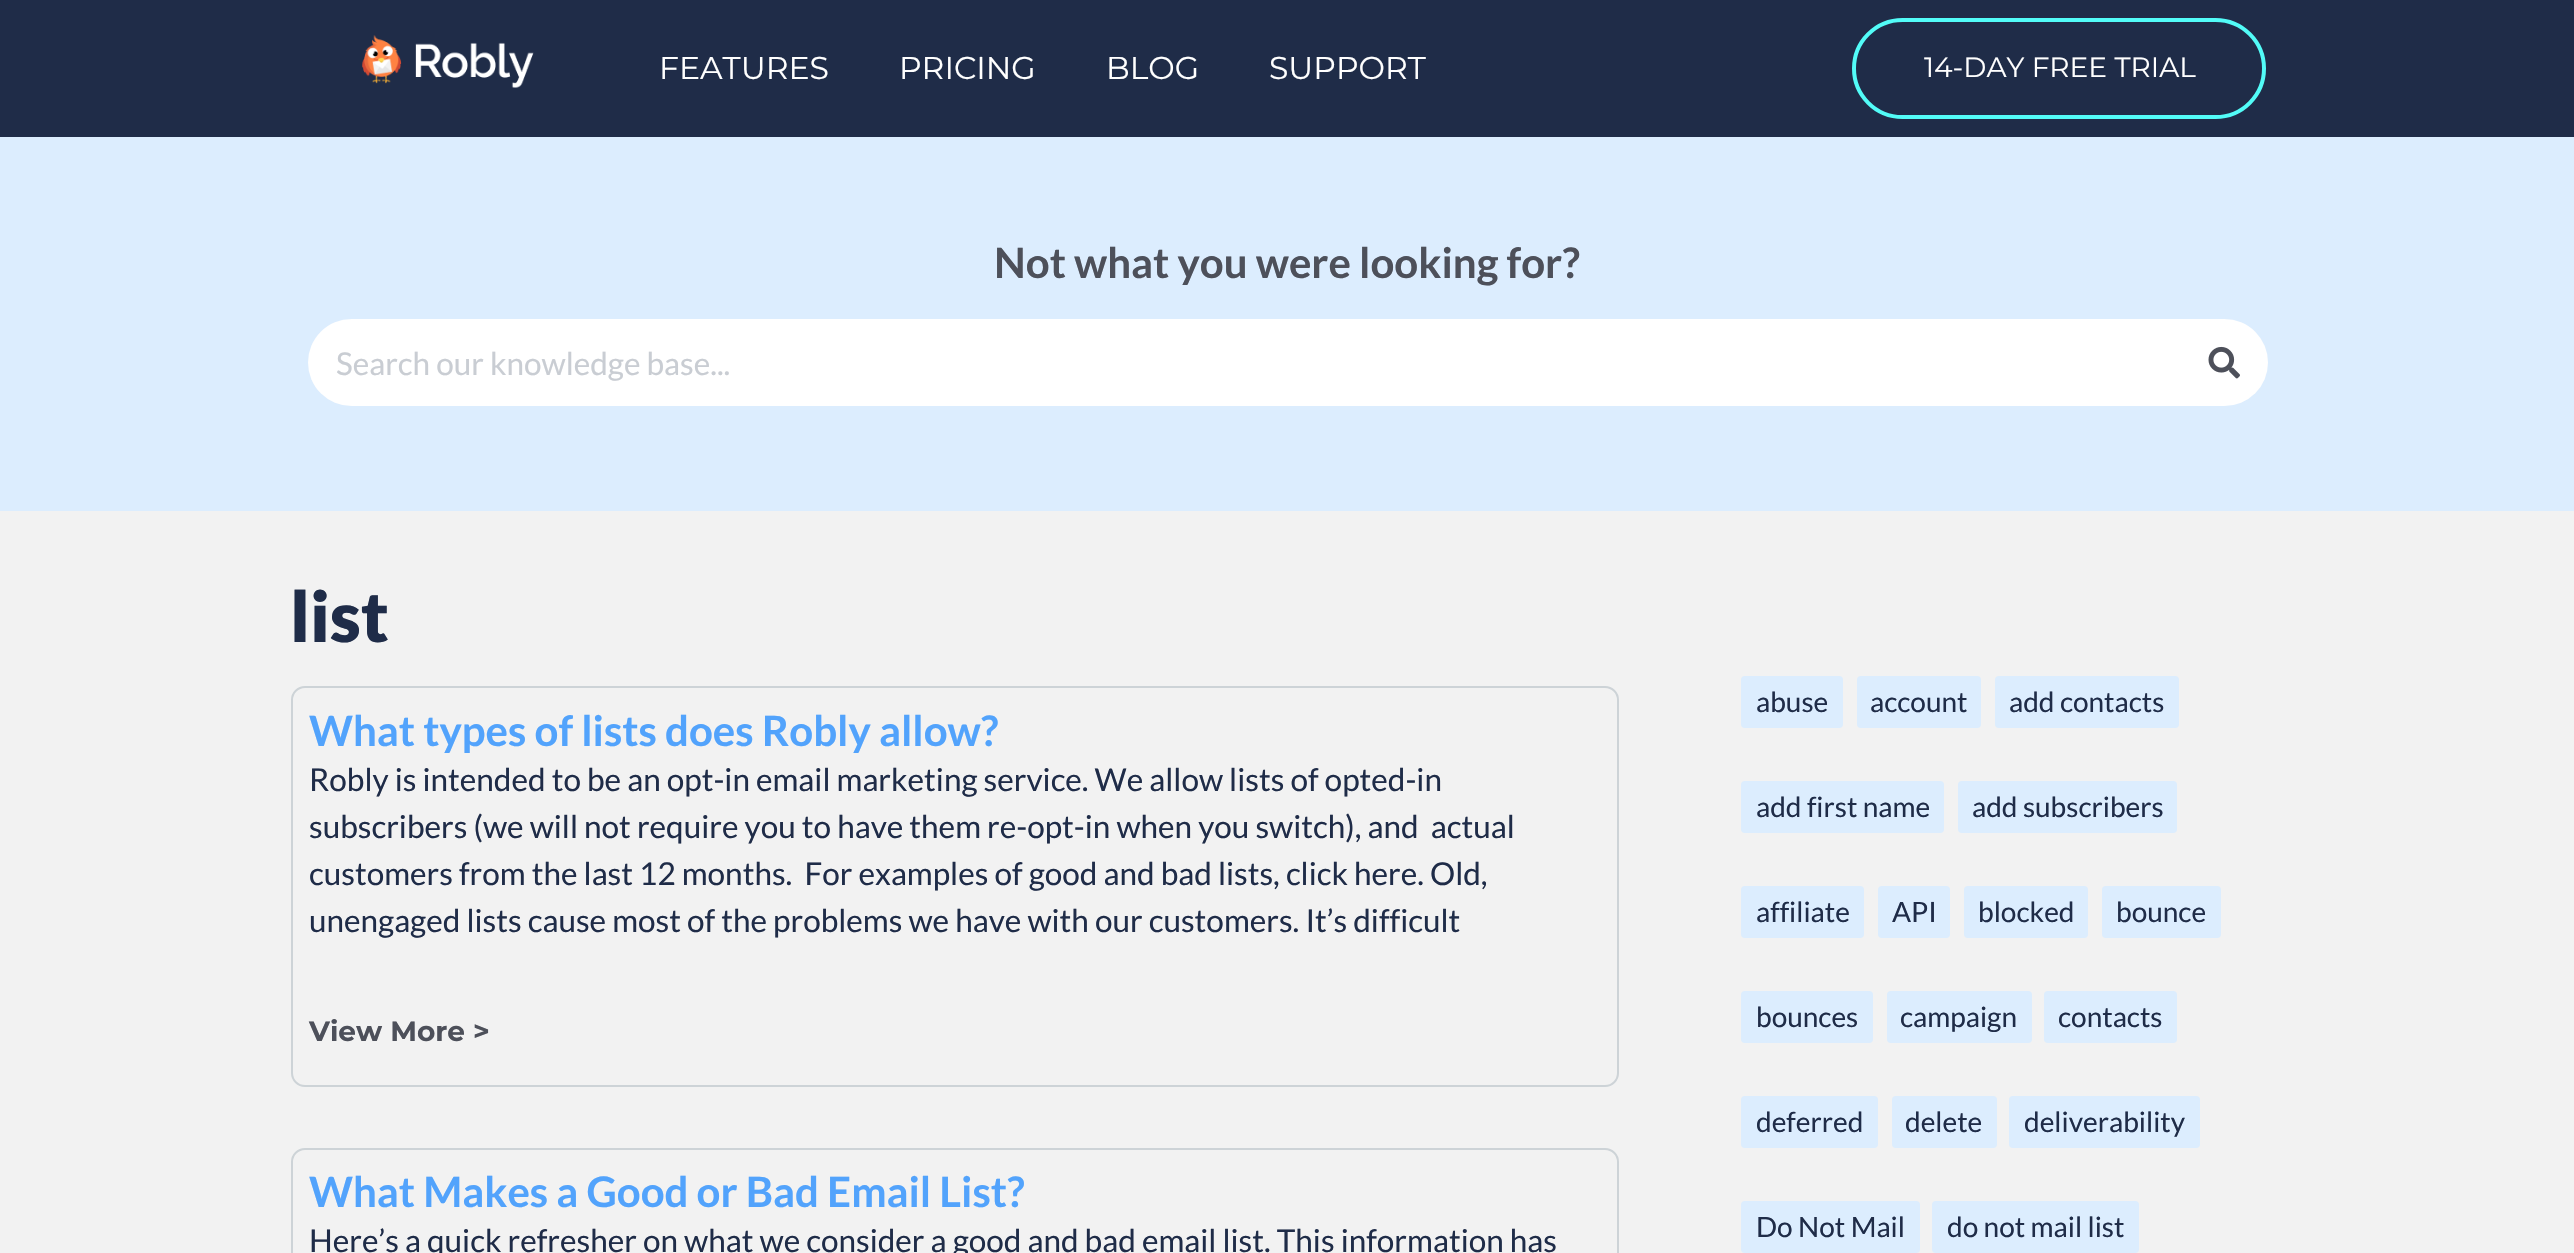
static SkFont makeFont(const char* family, int weight, float size, bool italic = false) {
  SkFontStyle style(weight, SkFontStyle::kNormal_Width,
    italic ? SkFontStyle::kItalic_Slant : SkFontStyle::kUpright_Slant);
  SkFont result(fontMgr->matchFamilyStyle(family, style), size);
  result.setSubpixel(true);
  return result;
}

static void text(SkCanvas* c, const char* s, float x, float y, const SkFont& font, SkColor color) {
  SkPaint ink(SkColor4f::FromColor(color));
  ink.setAntiAlias(true);
  c->drawString(s, x, y, font, ink);
}

static void box(SkCanvas* c, float l, float t, float r, float b, SkColor color) {
  SkPaint ink(SkColor4f::FromColor(color));
  ink.setAntiAlias(true);
  c->drawRect(SkRect::MakeLTRB(l, t, r, b), ink);
}

static void roundBox(SkCanvas* c, float l, float t, float r, float b, float radius, SkColor color) {
  SkPaint ink(SkColor4f::FromColor(color));
  ink.setAntiAlias(true);
  c->drawRoundRect(SkRect::MakeLTRB(l, t, r, b), radius, radius, ink);
}

static void picture(SkCanvas* c, const char* path, float l, float t, float r, float b) {
  auto image = SkImages::DeferredFromEncodedData(SkData::MakeFromFileName(path));
  c->drawImageRect(image, SkRect::MakeLTRB(l, t, r, b), SkSamplingOptions());
}

void draw(SkCanvas* c) {
  SkPaint paint;
  paint.setAntiAlias(true);
  c->clear(0xff1f2c48);
  picture(c, "img_01.png", 362, 35, 534, 88);
  SkFont face1 = makeFont("Montserrat", 400, 31.5f);
  text(c, "FEATURES", 659, 79, face1, 0xffffffff);
  text(c, "PRICING", 899, 79, face1, 0xffffffff);
  text(c, "BLOG", 1106, 79, face1, 0xffffffff);
  text(c, "SUPPORT", 1269, 79, face1, 0xffffffff);
  paint.setStyle(SkPaint::kStroke_Style);
  paint.setStrokeWidth(4);
  paint.setColor(0xff52fcf8);
  c->drawRoundRect(SkRect::MakeLTRB(1854, 20, 2264, 117), 48.5f, 48.5f, paint);
  SkFont face2 = makeFont("Montserrat", 400, 28);
  text(c, "14-DAY FREE TRIAL", 1924, 77, face2, 0xffffffff);
  box(c, 0, 137, 2574, 511, 0xffdcedfe);
  SkFont face3 = makeFont("Lato", 700, 42);
  text(c, "Not what you were looking for?", 994, 278, face3, 0xff4d505a);
  roundBox(c, 308, 319, 2268, 406, 43.5f, 0xffffffff);
  SkFont face4 = makeFont("Lato", 400, 31.5f);
  text(c, "Search our knowledge base...", 336, 375, face4, 0xffc9cdd3);
  picture(c, "img_02.png", 2208, 346, 2240, 379);
  box(c, 0, 511, 2574, 1253, 0xfff2f2f2);
  SkFont face5 = makeFont("Lato", 900, 70);
  text(c, "list", 290, 642, face5, 0xff1f2c48);
  paint.setStrokeWidth(2);
  paint.setColor(0xffcdd3d7);
  c->drawRoundRect(SkRect::MakeLTRB(292, 687, 1618, 1086), 13, 13, paint);
  text(c, "What types of lists does Robly allow?", 309, 746, face3, 0xff52a3fc);
  text(c, "Robly is intended to be an opt-in email marketing service. We allow lists of opted-in", 309, 791, face4, 0xff1f2c48);
  text(c, "subscribers (we will not require you to have them re-opt-in when you switch), and  actual", 309, 838, face4, 0xff1f2c48);
  text(c, "customers from the last 12 months.  For examples of good and bad lists, click here. Old,", 309, 885, face4, 0xff1f2c48);
  text(c, "unengaged lists cause most of the problems we have with our customers. It’s difficult", 309, 932, face4, 0xff1f2c48);
  SkFont face6 = makeFont("Montserrat", 700, 28);
  text(c, "View More >", 309, 1041, face6, 0xff4d505a);
  c->drawRoundRect(SkRect::MakeLTRB(292, 1149, 1618, 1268), 13, 13, paint);
  text(c, "What Makes a Good or Bad Email List?", 309, 1207, face3, 0xff52a3fc);
  text(c, "Here’s a quick refresher on what we consider a good and bad email list. This information has", 309, 1252, face4, 0xff1f2c48);
  roundBox(c, 1741, 676, 1843, 728, 4, 0xffdcedfe);
  SkFont face7 = makeFont("Lato", 400, 28);
  text(c, "abuse", 1756, 712, face7, 0xff1f2c48);
  roundBox(c, 1857, 676, 1981, 728, 4, 0xffdcedfe);
  text(c, "account", 1870, 712, face7, 0xff1f2c48);
  roundBox(c, 1995, 676, 2179, 728, 4, 0xffdcedfe);
  text(c, "add contacts", 2009, 712, face7, 0xff1f2c48);
  roundBox(c, 1741, 781, 1944, 833, 4, 0xffdcedfe);
  text(c, "add first name", 1756, 817, face7, 0xff1f2c48);
  roundBox(c, 1958, 781, 2177, 833, 4, 0xffdcedfe);
  text(c, "add subscribers", 1972, 817, face7, 0xff1f2c48);
  roundBox(c, 1741, 886, 1864, 938, 4, 0xffdcedfe);
  text(c, "affiliate", 1756, 922, face7, 0xff1f2c48);
  roundBox(c, 1878, 886, 1950, 938, 4, 0xffdcedfe);
  text(c, "API", 1892, 922, face7, 0xff1f2c48);
  roundBox(c, 1964, 886, 2088, 938, 4, 0xffdcedfe);
  text(c, "blocked", 1978, 922, face7, 0xff1f2c48);
  roundBox(c, 2102, 886, 2221, 938, 4, 0xffdcedfe);
  text(c, "bounce", 2116, 922, face7, 0xff1f2c48);
  roundBox(c, 1741, 991, 1873, 1043, 4, 0xffdcedfe);
  text(c, "bounces", 1756, 1027, face7, 0xff1f2c48);
  roundBox(c, 1887, 991, 2032, 1043, 4, 0xffdcedfe);
  text(c, "campaign", 1900, 1027, face7, 0xff1f2c48);
  roundBox(c, 2044, 991, 2177, 1043, 4, 0xffdcedfe);
  text(c, "contacts", 2058, 1027, face7, 0xff1f2c48);
  roundBox(c, 1741, 1096, 1878, 1148, 4, 0xffdcedfe);
  text(c, "deferred", 1756, 1132, face7, 0xff1f2c48);
  roundBox(c, 1892, 1096, 1997, 1148, 4, 0xffdcedfe);
  text(c, "delete", 1905, 1132, face7, 0xff1f2c48);
  roundBox(c, 2009, 1096, 2200, 1148, 4, 0xffdcedfe);
  text(c, "deliverability", 2024, 1132, face7, 0xff1f2c48);
  roundBox(c, 1741, 1201, 1920, 1253, 4, 0xffdcedfe);
  text(c, "Do Not Mail", 1756, 1237, face7, 0xff1f2c48);
  roundBox(c, 1932, 1201, 2139, 1253, 4, 0xffdcedfe);
  text(c, "do not mail list", 1947, 1237, face7, 0xff1f2c48);
}
